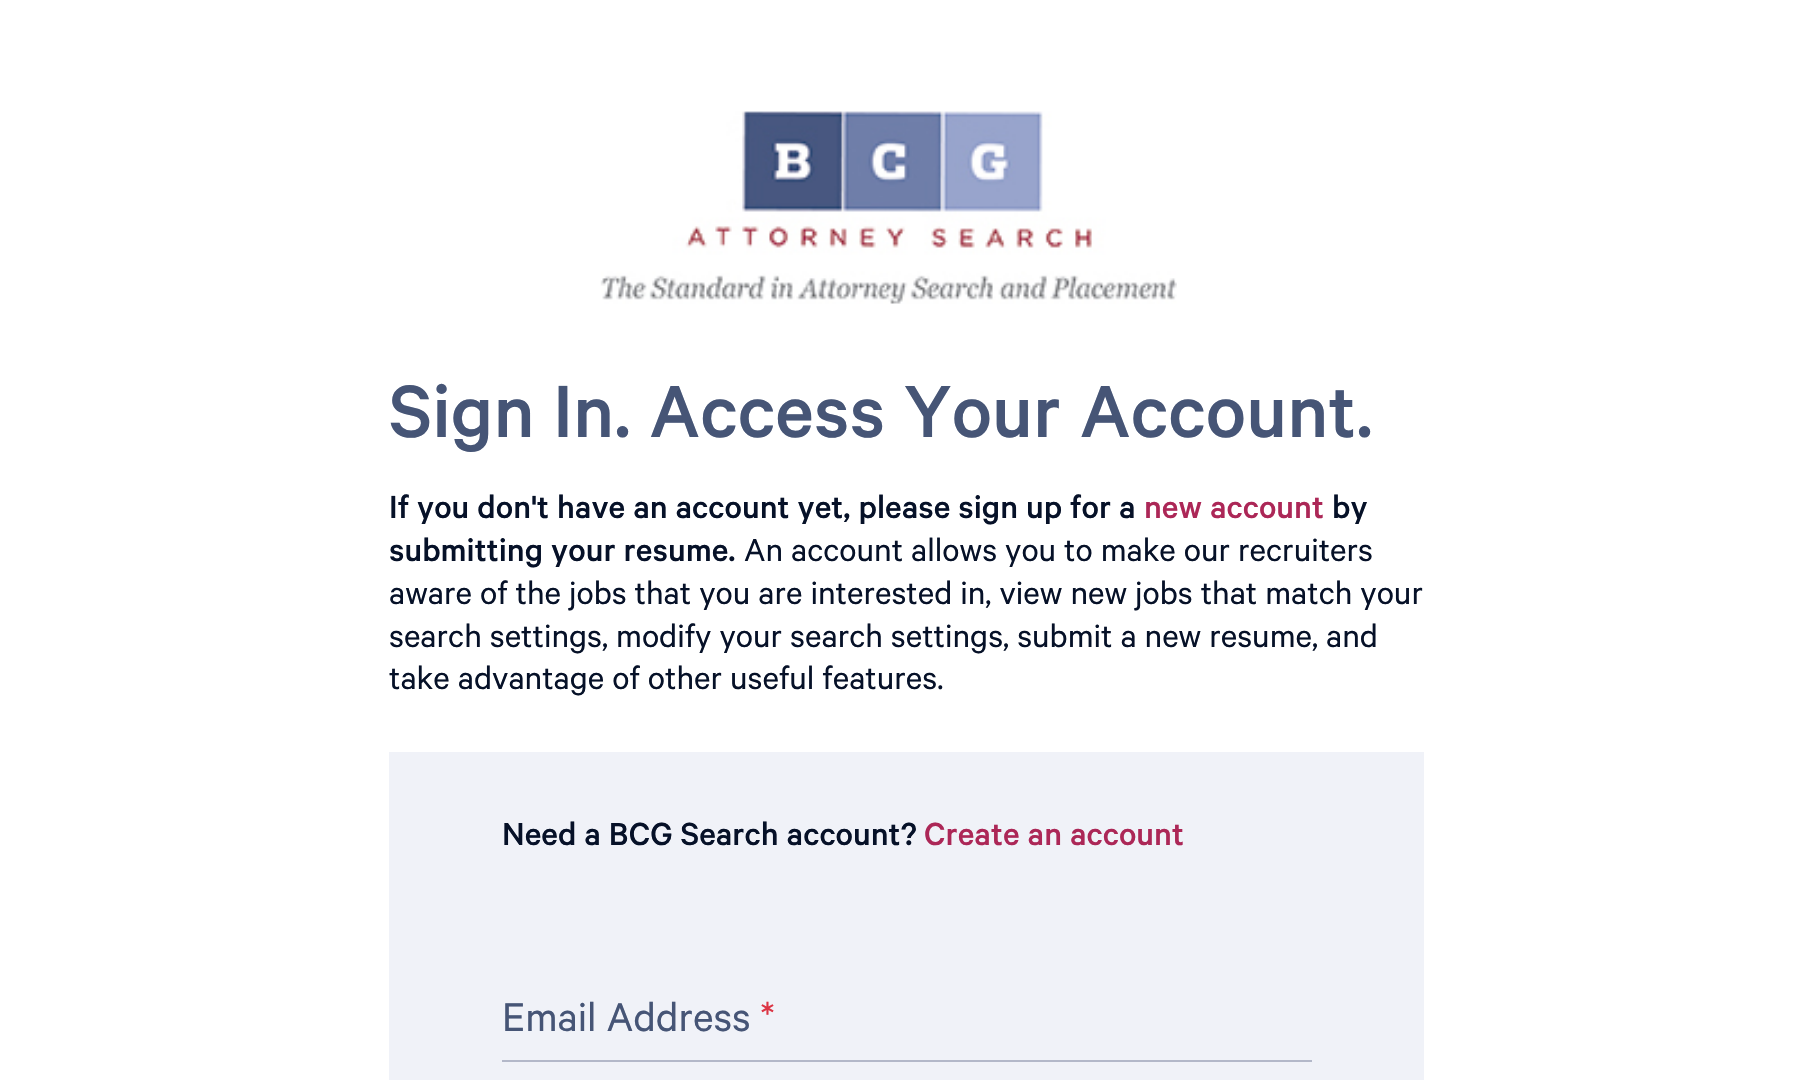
static SkFont makeFont(const char* family, int weight, float size, bool italic = false) {
  SkFontStyle style(weight, SkFontStyle::kNormal_Width,
    italic ? SkFontStyle::kItalic_Slant : SkFontStyle::kUpright_Slant);
  SkFont result(fontMgr->matchFamilyStyle(family, style), size);
  result.setSubpixel(true);
  return result;
}

static void text(SkCanvas* c, const char* s, float x, float y, const SkFont& font, SkColor color) {
  SkPaint ink(SkColor4f::FromColor(color));
  ink.setAntiAlias(true);
  c->drawString(s, x, y, font, ink);
}

static void box(SkCanvas* c, float l, float t, float r, float b, SkColor color) {
  SkPaint ink(SkColor4f::FromColor(color));
  ink.setAntiAlias(true);
  c->drawRect(SkRect::MakeLTRB(l, t, r, b), ink);
}

static void picture(SkCanvas* c, const char* path, float l, float t, float r, float b) {
  auto image = SkImages::DeferredFromEncodedData(SkData::MakeFromFileName(path));
  c->drawImageRect(image, SkRect::MakeLTRB(l, t, r, b), SkSamplingOptions());
}

void draw(SkCanvas* c) {
  SkPaint paint;
  paint.setAntiAlias(true);
  c->clear(0xffffffff);
  picture(c, "img_01.png", 600, 111, 1177, 304);
  SkFont face1 = makeFont("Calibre", 500, 83.25f);
  text(c, "Sign In. Access Your Account.", 389, 437, face1, 0xff465576);
  SkFont face2 = makeFont("Calibre", 500, 36);
  text(c, "If you don't have an account yet, please sign up for a", 389, 518, face2, 0xff061128);
  text(c, "new account", 1144, 518, face2, 0xffac2757);
  text(c, "by", 1332, 518, face2, 0xff061128);
  text(c, "submitting your resume.", 389, 561, face2, 0xff061128);
  SkFont face3 = makeFont("Calibre", 400, 36);
  text(c, "An account allows you to make our recruiters", 744, 561, face3, 0xff061128);
  text(c, "aware of the jobs that you are interested in, view new jobs that match your", 389, 604, face3, 0xff061128);
  text(c, "search settings, modify your search settings, submit a new resume, and", 389, 647, face3, 0xff061128);
  text(c, "take advantage of other useful features.", 389, 689, face3, 0xff061128);
  box(c, 389, 752, 1424, 1080, 0xfff0f2f8);
  text(c, "Need a BCG Search account?", 502, 845, face2, 0xff061128);
  text(c, "Create an account", 924, 845, face2, 0xffac2757);
  SkFont face4 = makeFont("Calibre", 400, 45);
  text(c, "Email Address", 502, 1031, face4, 0xff465576);
  text(c, "*", 760, 1031, face4, 0xffdc3545);
  box(c, 502, 1060, 1312, 1062, 0xffb3b8c9);
}
